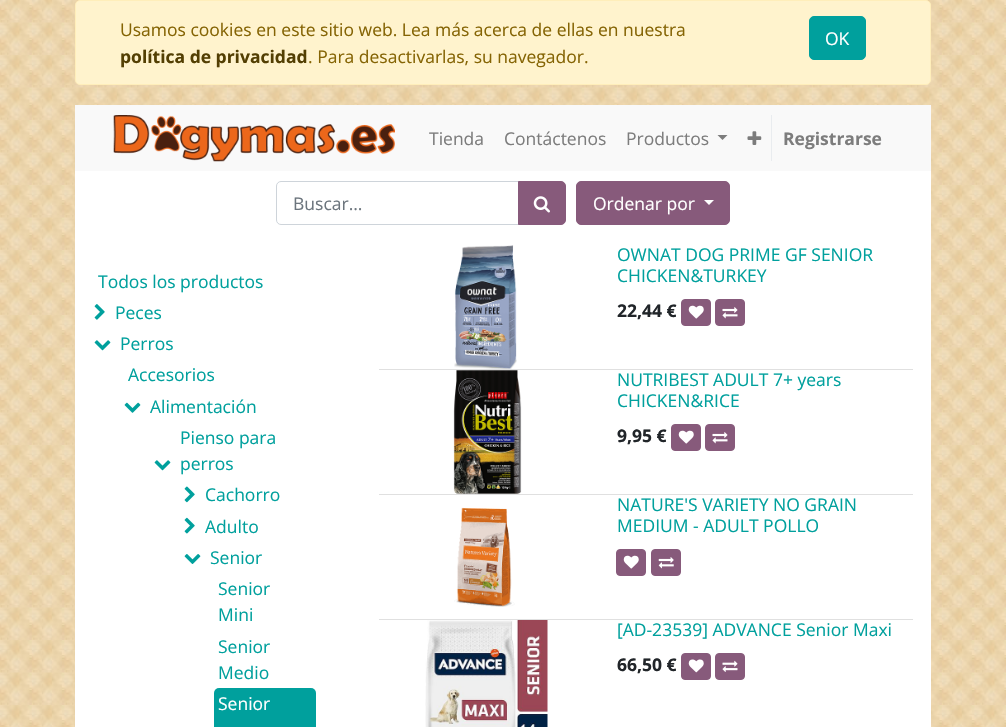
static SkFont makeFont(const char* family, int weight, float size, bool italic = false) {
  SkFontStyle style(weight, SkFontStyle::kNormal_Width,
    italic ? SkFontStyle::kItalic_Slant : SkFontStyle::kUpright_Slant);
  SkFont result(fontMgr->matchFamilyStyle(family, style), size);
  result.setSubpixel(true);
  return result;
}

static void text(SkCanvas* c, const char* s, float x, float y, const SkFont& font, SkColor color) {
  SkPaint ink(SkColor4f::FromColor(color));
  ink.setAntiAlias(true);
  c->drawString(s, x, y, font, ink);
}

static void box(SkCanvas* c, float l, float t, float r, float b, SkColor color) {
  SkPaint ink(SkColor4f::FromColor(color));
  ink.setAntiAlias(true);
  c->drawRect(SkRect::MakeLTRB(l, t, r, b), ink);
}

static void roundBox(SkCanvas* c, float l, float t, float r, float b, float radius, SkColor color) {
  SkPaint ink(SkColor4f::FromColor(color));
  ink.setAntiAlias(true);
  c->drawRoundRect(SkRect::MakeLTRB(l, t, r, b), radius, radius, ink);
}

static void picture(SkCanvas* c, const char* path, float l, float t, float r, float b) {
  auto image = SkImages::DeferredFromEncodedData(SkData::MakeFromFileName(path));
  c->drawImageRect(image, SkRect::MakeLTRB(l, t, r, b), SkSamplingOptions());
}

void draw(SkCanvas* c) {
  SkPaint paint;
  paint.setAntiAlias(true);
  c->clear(0xffffffff);
  picture(c, "img_01.png", 0, 0, 1006, 727);
  paint.setColor(0xfffff3cd);
  c->drawRoundRect(SkRect::MakeLTRB(75.5f, 0.5f, 930.5f, 84.5f), 4.5f, 4.5f, paint);
  paint.setStyle(SkPaint::kStroke_Style);
  paint.setStrokeWidth(1);
  paint.setColor(0xffffeeba);
  c->drawRoundRect(SkRect::MakeLTRB(75.5f, 0.5f, 930.5f, 84.5f), 4.5f, 4.5f, paint);
  SkFont face1 = makeFont("Open Sans", 400, 17.5f);
  text(c, "Usamos cookies en este sitio web. Lea más acerca de ellas en nuestra", 120, 36, face1, 0xff856404);
  SkFont face2 = makeFont("Open Sans", 700, 17.5f);
  text(c, "política de privacidad", 120, 63, face2, 0xff533f03);
  text(c, ". Para desactivarlas, su navegador.", 308, 63, face1, 0xff856404);
  paint.setStyle(SkPaint::kFill_Style);
  paint.setColor(0xff00a09d);
  c->drawRoundRect(SkRect::MakeLTRB(809.5f, 16.5f, 865.5f, 59.5f), 4.5f, 4.5f, paint);
  paint.setStyle(SkPaint::kStroke_Style);
  c->drawRoundRect(SkRect::MakeLTRB(809.5f, 16.5f, 865.5f, 59.5f), 4.5f, 4.5f, paint);
  text(c, "OK", 825, 45, face1, 0xffffffff);
  box(c, 75, 105, 931, 171, 0xfff9f9f9);
  picture(c, "img_02.png", 113, 115, 395, 162);
  text(c, "Tienda", 429, 145, face1, 0xff7d7d7d);
  text(c, "Contáctenos", 504, 145, face1, 0xff7d7d7d);
  text(c, "Productos", 626, 145, face1, 0xff7d7d7d);
  paint.setStyle(SkPaint::kFill_Style);
  paint.setColor(0xff7d7d7d);
  c->drawPath(SkPathBuilder().moveTo(717.5f, 135).lineTo(727.5f, 135).lineTo(722.5f, 140).close().detach(), paint);
  picture(c, "img_03.png", 747, 131, 762, 145);
  box(c, 771, 115, 772, 161, 0xffe9ecef);
  text(c, "Registrarse", 783, 145, face2, 0xff7d7d7d);
  box(c, 75, 171, 931, 727, 0xffffffff);
  paint.setStyle(SkPaint::kStroke_Style);
  paint.setColor(0xffced4da);
  c->drawPath(SkPathBuilder().moveTo(281, 181.5f).lineTo(518.5f, 181.5f).lineTo(518.5f, 224.5f).lineTo(281, 224.5f).cubicTo(278.5f, 224.5f, 276.5f, 222.5f, 276.5f, 220).lineTo(276.5f, 186).cubicTo(276.5f, 183.5f, 278.5f, 181.5f, 281, 181.5f).close().detach(), paint);
  text(c, "Buscar…", 293, 210, face1, 0xff6c757d);
  paint.setStyle(SkPaint::kFill_Style);
  paint.setColor(0xff875a7b);
  c->drawPath(SkPathBuilder().moveTo(518.5f, 181.5f).lineTo(561, 181.5f).cubicTo(563.5f, 181.5f, 565.5f, 183.5f, 565.5f, 186).lineTo(565.5f, 220).cubicTo(565.5f, 222.5f, 563.5f, 224.5f, 561, 224.5f).lineTo(518.5f, 224.5f).close().detach(), paint);
  paint.setStyle(SkPaint::kStroke_Style);
  c->drawPath(SkPathBuilder().moveTo(518.5f, 181.5f).lineTo(561, 181.5f).cubicTo(563.5f, 181.5f, 565.5f, 183.5f, 565.5f, 186).lineTo(565.5f, 220).cubicTo(565.5f, 222.5f, 563.5f, 224.5f, 561, 224.5f).lineTo(518.5f, 224.5f).close().detach(), paint);
  picture(c, "img_04.png", 533, 196, 550, 213);
  paint.setStyle(SkPaint::kFill_Style);
  c->drawRoundRect(SkRect::MakeLTRB(576.5f, 181.5f, 729.5f, 224.5f), 4.5f, 4.5f, paint);
  paint.setStyle(SkPaint::kStroke_Style);
  c->drawRoundRect(SkRect::MakeLTRB(576.5f, 181.5f, 729.5f, 224.5f), 4.5f, 4.5f, paint);
  text(c, "Ordenar por", 593, 210, face1, 0xffffffff);
  paint.setStyle(SkPaint::kFill_Style);
  paint.setColor(0xffffffff);
  c->drawPath(SkPathBuilder().moveTo(704, 200).lineTo(714, 200).lineTo(709, 205).close().detach(), paint);
  text(c, "Todos los productos", 98, 288, face1, 0xff00a09d);
  picture(c, "img_05.png", 94, 304, 105, 320);
  text(c, "Peces", 115, 319, face1, 0xff00a09d);
  picture(c, "img_06.png", 94, 340, 111, 351);
  text(c, "Perros", 120, 350, face1, 0xff00a09d);
  text(c, "Accesorios", 128, 381, face1, 0xff00a09d);
  picture(c, "img_07.png", 124, 402, 141, 413);
  text(c, "Alimentación", 150, 413, face1, 0xff00a09d);
  picture(c, "img_06.png", 154, 460, 171, 471);
  text(c, "Pienso para", 180, 444, face1, 0xff00a09d);
  text(c, "perros", 180, 470, face1, 0xff00a09d);
  picture(c, "img_08.png", 184, 486, 195, 503);
  text(c, "Cachorro", 205, 501, face1, 0xff00a09d);
  picture(c, "img_09.png", 184, 517, 195, 534);
  text(c, "Adulto", 205, 533, face1, 0xff00a09d);
  picture(c, "img_10.png", 184, 554, 201, 564);
  text(c, "Senior", 210, 564, face1, 0xff00a09d);
  text(c, "Senior", 218, 595, face1, 0xff00a09d);
  text(c, "Mini", 218, 621, face1, 0xff00a09d);
  text(c, "Senior", 218, 653, face1, 0xff00a09d);
  text(c, "Medio", 218, 679, face1, 0xff00a09d);
  roundBox(c, 214, 688, 316, 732, 5, 0xff00a09d);
  text(c, "Senior", 218, 710, face1, 0xffffffff);
  box(c, 379, 369, 913, 370, 0xffe0e0e0);
  picture(c, "img_11.png", 454, 245, 517, 369);
  text(c, "OWNAT DOG PRIME GF SENIOR", 617, 261, face1, 0xff00a09d);
  text(c, "CHICKEN&TURKEY", 617, 282, face1, 0xff00a09d);
  text(c, "22,44 €", 617, 317, face2, 0xff212529);
  paint.setColor(0xff875a7b);
  c->drawRoundRect(SkRect::MakeLTRB(681.5f, 299.5f, 710.5f, 325.5f), 3.5f, 3.5f, paint);
  paint.setStyle(SkPaint::kStroke_Style);
  c->drawRoundRect(SkRect::MakeLTRB(681.5f, 299.5f, 710.5f, 325.5f), 3.5f, 3.5f, paint);
  picture(c, "img_12.png", 688, 305, 704, 319);
  paint.setStyle(SkPaint::kFill_Style);
  c->drawRoundRect(SkRect::MakeLTRB(715.5f, 299.5f, 744.5f, 325.5f), 3.5f, 3.5f, paint);
  paint.setStyle(SkPaint::kStroke_Style);
  c->drawRoundRect(SkRect::MakeLTRB(715.5f, 299.5f, 744.5f, 325.5f), 3.5f, 3.5f, paint);
  picture(c, "img_13.png", 722, 307, 738, 319);
  box(c, 379, 494, 913, 495, 0xffe0e0e0);
  picture(c, "img_14.png", 453, 370, 522, 494);
  text(c, "NUTRIBEST ADULT 7+ years", 617, 386, face1, 0xff00a09d);
  text(c, "CHICKEN&RICE", 617, 407, face1, 0xff00a09d);
  text(c, "9,95 €", 617, 442, face2, 0xff212529);
  paint.setStyle(SkPaint::kFill_Style);
  c->drawRoundRect(SkRect::MakeLTRB(671.5f, 424.5f, 700.5f, 450.5f), 3.5f, 3.5f, paint);
  paint.setStyle(SkPaint::kStroke_Style);
  c->drawRoundRect(SkRect::MakeLTRB(671.5f, 424.5f, 700.5f, 450.5f), 3.5f, 3.5f, paint);
  picture(c, "img_12.png", 678, 430, 694, 444);
  paint.setStyle(SkPaint::kFill_Style);
  c->drawRoundRect(SkRect::MakeLTRB(705.5f, 424.5f, 734.5f, 450.5f), 3.5f, 3.5f, paint);
  paint.setStyle(SkPaint::kStroke_Style);
  c->drawRoundRect(SkRect::MakeLTRB(705.5f, 424.5f, 734.5f, 450.5f), 3.5f, 3.5f, paint);
  picture(c, "img_13.png", 712, 432, 728, 444);
  box(c, 379, 619, 913, 620, 0xffe0e0e0);
  picture(c, "img_15.png", 454, 507, 515, 607);
  text(c, "NATURE'S VARIETY NO GRAIN", 617, 511, face1, 0xff00a09d);
  text(c, "MEDIUM - ADULT POLLO", 617, 532, face1, 0xff00a09d);
  paint.setStyle(SkPaint::kFill_Style);
  c->drawRoundRect(SkRect::MakeLTRB(616.5f, 549.5f, 645.5f, 575.5f), 3.5f, 3.5f, paint);
  paint.setStyle(SkPaint::kStroke_Style);
  c->drawRoundRect(SkRect::MakeLTRB(616.5f, 549.5f, 645.5f, 575.5f), 3.5f, 3.5f, paint);
  picture(c, "img_12.png", 623, 555, 639, 569);
  paint.setStyle(SkPaint::kFill_Style);
  c->drawRoundRect(SkRect::MakeLTRB(651.5f, 549.5f, 680.5f, 575.5f), 3.5f, 3.5f, paint);
  paint.setStyle(SkPaint::kStroke_Style);
  c->drawRoundRect(SkRect::MakeLTRB(651.5f, 549.5f, 680.5f, 575.5f), 3.5f, 3.5f, paint);
  picture(c, "img_16.png", 658, 557, 674, 569);
  picture(c, "img_17.png", 425, 620, 548, 727);
  text(c, "[AD-23539] ADVANCE Senior Maxi", 617, 636, face1, 0xff00a09d);
  text(c, "66,50 €", 617, 671, face2, 0xff212529);
  paint.setStyle(SkPaint::kFill_Style);
  c->drawRoundRect(SkRect::MakeLTRB(681.5f, 653.5f, 710.5f, 679.5f), 3.5f, 3.5f, paint);
  paint.setStyle(SkPaint::kStroke_Style);
  c->drawRoundRect(SkRect::MakeLTRB(681.5f, 653.5f, 710.5f, 679.5f), 3.5f, 3.5f, paint);
  picture(c, "img_18.png", 688, 659, 704, 673);
  paint.setStyle(SkPaint::kFill_Style);
  c->drawRoundRect(SkRect::MakeLTRB(715.5f, 653.5f, 744.5f, 679.5f), 3.5f, 3.5f, paint);
  paint.setStyle(SkPaint::kStroke_Style);
  c->drawRoundRect(SkRect::MakeLTRB(715.5f, 653.5f, 744.5f, 679.5f), 3.5f, 3.5f, paint);
  picture(c, "img_19.png", 722, 660, 738, 672);
}
